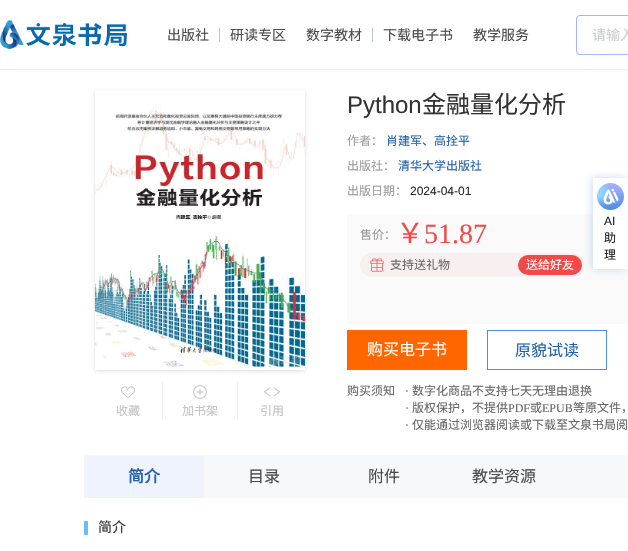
static SkFont makeFont(const char* family, int weight, float size, bool italic = false) {
  SkFontStyle style(weight, SkFontStyle::kNormal_Width,
    italic ? SkFontStyle::kItalic_Slant : SkFontStyle::kUpright_Slant);
  SkFont result(fontMgr->matchFamilyStyle(family, style), size);
  result.setSubpixel(true);
  return result;
}

static void text(SkCanvas* c, const char* s, float x, float y, const SkFont& font, SkColor color) {
  SkPaint ink(SkColor4f::FromColor(color));
  ink.setAntiAlias(true);
  c->drawString(s, x, y, font, ink);
}

static void box(SkCanvas* c, float l, float t, float r, float b, SkColor color) {
  SkPaint ink(SkColor4f::FromColor(color));
  ink.setAntiAlias(true);
  c->drawRect(SkRect::MakeLTRB(l, t, r, b), ink);
}

static void roundBox(SkCanvas* c, float l, float t, float r, float b, float radius, SkColor color) {
  SkPaint ink(SkColor4f::FromColor(color));
  ink.setAntiAlias(true);
  c->drawRoundRect(SkRect::MakeLTRB(l, t, r, b), radius, radius, ink);
}

static void picture(SkCanvas* c, const char* path, float l, float t, float r, float b) {
  auto image = SkImages::DeferredFromEncodedData(SkData::MakeFromFileName(path));
  c->drawImageRect(image, SkRect::MakeLTRB(l, t, r, b), SkSamplingOptions());
}

void draw(SkCanvas* c) {
  SkPaint paint;
  paint.setAntiAlias(true);
  c->clear(0xffffffff);
  box(c, 0, 69, 628, 70, 0xffeef0f2);
  picture(c, "img_01.png", 0, 20, 127, 49);
  SkFont face1 = makeFont("Noto Sans CJK SC", 400, 14);
  text(c, "出版社", 167, 40, face1, 0xff494a4b);
  box(c, 219, 28, 220, 42, 0xffbbc5cf);
  text(c, "研读专区", 230, 40, face1, 0xff494a4b);
  text(c, "数字教材", 306, 40, face1, 0xff494a4b);
  box(c, 372, 28, 373, 42, 0xffbbc5cf);
  text(c, "下载电子书", 383, 40, face1, 0xff494a4b);
  text(c, "教学服务", 473, 40, face1, 0xff494a4b);
  {
    const SkColor colors[] = {0xffa8b0fe, 0xff8ed0fe, 0xff4c8ee2};
    const float stops[] = {0, 0.5f, 1};
    const SkPoint ends[] = {{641, -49}, {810, 120}};
    paint.setShader(SkGradientShader::MakeLinear(ends, colors, stops, 3, SkTileMode::kClamp));
    paint.setAlpha(255);
  }
  c->drawPath(SkPathBuilder().moveTo(580, 15).lineTo(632, 15).lineTo(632, 55).lineTo(580, 55).cubicTo(578, 55, 576, 53, 576, 51).lineTo(576, 19).cubicTo(576, 17, 578, 15, 580, 15).close().detach(), paint);
  paint.setShader(nullptr);
  paint.setColor(0xffffffff);
  c->drawPath(SkPathBuilder().moveTo(580, 16).lineTo(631, 16).lineTo(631, 54).lineTo(580, 54).cubicTo(578.5f, 54, 577, 52.5f, 577, 51).lineTo(577, 19).cubicTo(577, 17.5f, 578.5f, 16, 580, 16).close().detach(), paint);
  text(c, "请输入", 592, 40, face1, 0xffcaced2);
  picture(c, "img_02.png", 95, 102, 305, 368);
  c->save();
  c->clipPath(SkPathBuilder(SkPathFillType::kEvenOdd).moveTo(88, 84).lineTo(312, 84).lineTo(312, 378).lineTo(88, 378).close().moveTo(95, 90).lineTo(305, 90).lineTo(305, 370).lineTo(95, 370).close().detach(), true);
  paint.setColor(0x2e203041);
  paint.setMaskFilter(SkMaskFilter::MakeBlur(kNormal_SkBlurStyle, 2));
  c->drawRect(SkRect::MakeLTRB(95, 91, 305, 371), paint);
  paint.setMaskFilter(nullptr);
  c->restore();
  picture(c, "img_03.png", 121, 386, 135, 398);
  SkFont face2 = makeFont("Noto Sans CJK SC", 400, 12);
  text(c, "收藏", 116, 415, face2, 0xffc3c3c3);
  box(c, 237, 381, 238, 420, 0xffeeeeee);
  box(c, 162, 381, 163, 420, 0xffeeeeee);
  picture(c, "img_04.png", 193, 385, 207, 399);
  text(c, "加书架", 182, 415, face2, 0xffc3c3c3);
  picture(c, "img_05.png", 264, 387, 280, 397);
  text(c, "引用", 260, 415, face2, 0xffc3c3c3);
  SkFont face3 = makeFont("Liberation Sans", 400, 24);
  text(c, "Python", 347, 113, face3, 0xff333333);
  SkFont face4 = makeFont("Noto Sans CJK SC", 400, 24);
  text(c, "金融量化分析", 422, 113, face4, 0xff333333);
  text(c, "作者：", 347, 145, face2, 0xff9b9b9b);
  text(c, "肖建军、高拴平", 386, 145, face2, 0xff2160aa);
  text(c, "出版社：", 347, 170, face2, 0xff9b9b9b);
  text(c, "清华大学出版社", 398, 170, face2, 0xff2160aa);
  text(c, "出版日期：", 347, 195, face2, 0xff9b9b9b);
  SkFont face5 = makeFont("Liberation Sans", 400, 12);
  text(c, "2024-04-01", 410, 195, face5, 0xff2a2a2a);
  box(c, 347, 214, 628, 324, 0xfffafafa);
  text(c, "售价：", 360, 239, face2, 0xff9b9b9b);
  SkFont face6 = makeFont("Noto Sans CJK SC", 400, 28);
  text(c, "￥", 396, 243, face6, 0xfff04a49);
  SkFont face7 = makeFont("Liberation Serif", 400, 28);
  text(c, "51.87", 424, 243, face7, 0xfff04a49);
  roundBox(c, 360, 253, 584, 277, 12, 0xfff8f0f0);
  picture(c, "img_06.png", 370, 258, 384, 272);
  text(c, "支持送礼物", 390, 269, face2, 0xff666666);
  roundBox(c, 518, 255, 582, 275, 10, 0xfff04a49);
  text(c, "送给好友", 526, 269, face2, 0xffffffff);
  box(c, 347, 330, 467, 370, 0xffff6600);
  SkFont face8 = makeFont("Noto Sans CJK SC", 400, 16);
  text(c, "购买电子书", 367, 355, face8, 0xffffffff);
  paint.setStyle(SkPaint::kStroke_Style);
  paint.setStrokeWidth(1);
  paint.setColor(0xff4a90e2);
  c->drawRect(SkRect::MakeLTRB(487.5f, 330.5f, 606.5f, 369.5f), paint);
  text(c, "原貌试读", 515, 356, face8, 0xff2160aa);
  text(c, "购买须知", 347, 395, face2, 0xff666666);
  SkFont face9 = makeFont("Liberation Serif", 400, 12);
  text(c, "·", 405, 395, face9, 0xff666666);
  text(c, "数字化商品不支持七天无理由退换", 412, 395, face2, 0xff666666);
  text(c, "·", 405, 412, face9, 0xff666666);
  text(c, "版权保护，不提供", 412, 412, face2, 0xff666666);
  text(c, "PDF", 508, 412, face9, 0xff666666);
  text(c, "或", 530, 412, face2, 0xff666666);
  text(c, "EPUB", 542, 412, face9, 0xff666666);
  text(c, "等原文件，", 573, 412, face2, 0xff666666);
  text(c, "·", 405, 429, face9, 0xff666666);
  text(c, "仅能通过浏览器阅读或下载至文泉书局阅", 412, 429, face2, 0xff666666);
  box(c, 84, 455, 628, 498, 0xfff6f8f9);
  box(c, 84, 456, 204, 498, 0xffeef3fe);
  SkFont face10 = makeFont("Noto Sans CJK SC", 700, 16);
  text(c, "简介", 128, 482, face10, 0xff2160aa);
  text(c, "目录", 248, 482, face8, 0xff494a4b);
  text(c, "附件", 368, 482, face8, 0xff494a4b);
  text(c, "教学资源", 472, 482, face8, 0xff494a4b);
  box(c, 84, 521, 88, 535, 0xff68bef8);
  text(c, "简介", 98, 532, face1, 0xff333333);
  paint.setStyle(SkPaint::kFill_Style);
  paint.setColor(0x3b2061aa);
  paint.setMaskFilter(SkMaskFilter::MakeBlur(kNormal_SkBlurStyle, 4));
  c->drawRect(SkRect::MakeLTRB(592, 178, 627, 269), paint);
  paint.setMaskFilter(nullptr);
  box(c, 593, 178, 628, 269, 0xffffffff);
  picture(c, "img_07.png", 597, 183, 624, 210);
  text(c, "AI", 604, 225, face5, 0xff212223);
  text(c, "助", 604, 242, face2, 0xff212223);
  text(c, "理", 604, 259, face2, 0xff212223);
}
